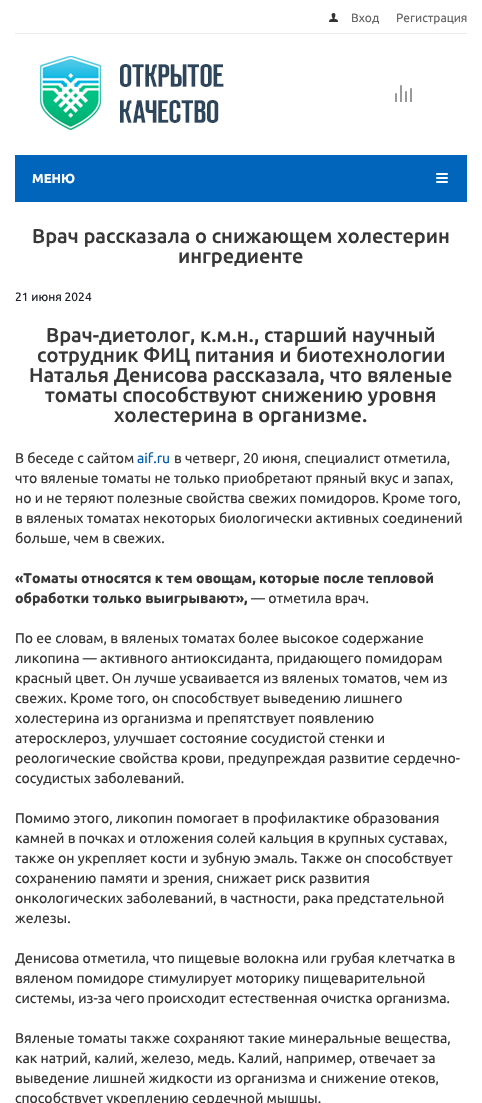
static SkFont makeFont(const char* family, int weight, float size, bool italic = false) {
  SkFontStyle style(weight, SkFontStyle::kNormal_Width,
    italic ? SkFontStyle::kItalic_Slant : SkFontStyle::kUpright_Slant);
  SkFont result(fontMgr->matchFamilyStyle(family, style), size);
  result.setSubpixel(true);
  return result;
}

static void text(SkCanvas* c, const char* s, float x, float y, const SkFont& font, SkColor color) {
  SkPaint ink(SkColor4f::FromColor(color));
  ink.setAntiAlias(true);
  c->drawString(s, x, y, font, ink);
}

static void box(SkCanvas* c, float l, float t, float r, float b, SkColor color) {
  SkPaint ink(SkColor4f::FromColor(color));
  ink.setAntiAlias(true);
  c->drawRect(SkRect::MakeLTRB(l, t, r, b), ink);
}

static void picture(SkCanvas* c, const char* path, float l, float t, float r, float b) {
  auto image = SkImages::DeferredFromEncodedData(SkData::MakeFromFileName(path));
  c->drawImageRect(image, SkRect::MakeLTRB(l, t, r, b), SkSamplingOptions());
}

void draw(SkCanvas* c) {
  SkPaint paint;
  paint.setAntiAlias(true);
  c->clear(0xffffffff);
  picture(c, "img_01.png", 329, 13, 338, 22);
  SkFont face1 = makeFont("Ubuntu", 400, 12);
  text(c, "Вход", 351, 22, face1, 0xff666666);
  text(c, "Регистрация", 396, 22, face1, 0xff666666);
  box(c, 15, 33, 467, 34, 0xffeaebec);
  picture(c, "img_02.png", 40, 56, 224, 130);
  picture(c, "img_03.png", 395, 85, 412, 102);
  box(c, 15, 155, 467, 202, 0xff0065bb);
  SkFont face2 = makeFont("Ubuntu", 700, 13);
  text(c, "МЕНЮ", 32, 183, face2, 0xffffffff);
  picture(c, "img_04.png", 436, 173, 448, 183);
  SkFont face3 = makeFont("Ubuntu", 500, 20);
  text(c, "Врач рассказала о снижающем холестерин", 32, 243, face3, 0xff383838);
  text(c, "ингредиенте", 178, 263, face3, 0xff383838);
  text(c, "21 июня 2024", 15, 301, face1, 0xff1d2029);
  text(c, "Врач-диетолог, к.м.н., старший научный", 46, 342, face3, 0xff383838);
  text(c, "сотрудник ФИЦ питания и биотехнологии", 37, 362, face3, 0xff383838);
  text(c, "Наталья Денисова рассказала, что вяленые", 29, 382, face3, 0xff383838);
  text(c, "томаты способствуют снижению уровня", 45, 402, face3, 0xff383838);
  text(c, "холестерина в организме.", 114, 422, face3, 0xff383838);
  SkFont face4 = makeFont("Ubuntu", 400, 14);
  text(c, "В беседе с сайтом", 15, 463, face4, 0xff383838);
  text(c, "aif.ru", 137, 463, face4, 0xff005fb1);
  text(c, "в четверг, 20 июня, специалист отметила,", 174, 463, face4, 0xff383838);
  text(c, "что вяленые томаты не только приобретают пряный вкус и запах,", 15, 483, face4, 0xff383838);
  text(c, "но и не теряют полезные свойства свежих помидоров. Кроме того,", 15, 503, face4, 0xff383838);
  text(c, "в вяленых томатах некоторых биологически активных соединений", 15, 523, face4, 0xff383838);
  text(c, "больше, чем в свежих.", 15, 543, face4, 0xff383838);
  SkFont face5 = makeFont("Ubuntu", 700, 14);
  text(c, "«Томаты относятся к тем овощам, которые после тепловой", 15, 583, face5, 0xff383838);
  text(c, "обработки только выигрывают»,", 15, 603, face5, 0xff383838);
  text(c, "— отметила врач.", 251, 603, face4, 0xff383838);
  text(c, "По ее словам, в вяленых томатах более высокое содержание", 15, 643, face4, 0xff383838);
  text(c, "ликопина — активного антиоксиданта, придающего помидорам", 15, 663, face4, 0xff383838);
  text(c, "красный цвет. Он лучше усваивается из вяленых томатов, чем из", 15, 683, face4, 0xff383838);
  text(c, "свежих. Кроме того, он способствует выведению лишнего", 15, 703, face4, 0xff383838);
  text(c, "холестерина из организма и препятствует появлению", 15, 723, face4, 0xff383838);
  text(c, "атеросклероз, улучшает состояние сосудистой стенки и", 15, 743, face4, 0xff383838);
  text(c, "реологические свойства крови, предупреждая развитие сердечно-", 15, 763, face4, 0xff383838);
  text(c, "сосудистых заболеваний.", 15, 783, face4, 0xff383838);
  text(c, "Помимо этого, ликопин помогает в профилактике образования", 15, 823, face4, 0xff383838);
  text(c, "камней в почках и отложения солей кальция в крупных суставах,", 15, 843, face4, 0xff383838);
  text(c, "также он укрепляет кости и зубную эмаль. Также он способствует", 15, 863, face4, 0xff383838);
  text(c, "сохранению памяти и зрения, снижает риск развития", 15, 883, face4, 0xff383838);
  text(c, "онкологических заболеваний, в частности, рака предстательной", 15, 903, face4, 0xff383838);
  text(c, "железы.", 15, 923, face4, 0xff383838);
  text(c, "Денисова отметила, что пищевые волокна или грубая клетчатка в", 15, 963, face4, 0xff383838);
  text(c, "вяленом помидоре стимулирует моторику пищеварительной", 15, 983, face4, 0xff383838);
  text(c, "системы, из-за чего происходит естественная очистка организма.", 15, 1003, face4, 0xff383838);
  text(c, "Вяленые томаты также сохраняют такие минеральные вещества,", 15, 1043, face4, 0xff383838);
  text(c, "как натрий, калий, железо, медь. Калий, например, отвечает за", 15, 1063, face4, 0xff383838);
  text(c, "выведение лишней жидкости из организма и снижение отеков,", 15, 1083, face4, 0xff383838);
  text(c, "способствует укреплению сердечной мышцы.", 15, 1103, face4, 0xff383838);
}
